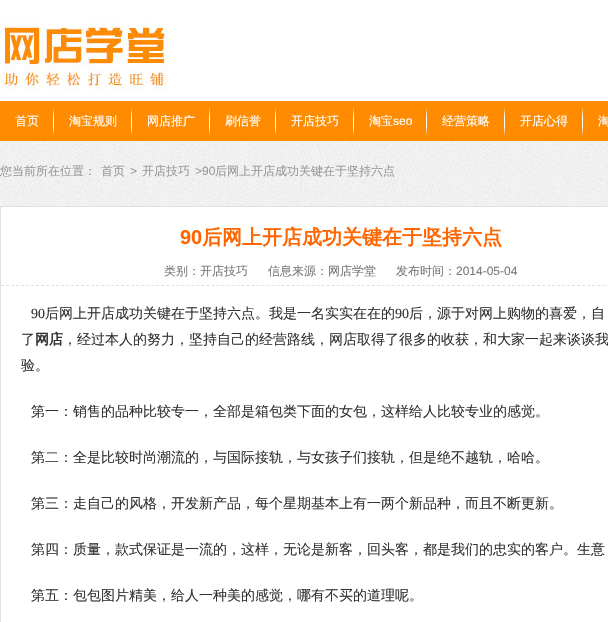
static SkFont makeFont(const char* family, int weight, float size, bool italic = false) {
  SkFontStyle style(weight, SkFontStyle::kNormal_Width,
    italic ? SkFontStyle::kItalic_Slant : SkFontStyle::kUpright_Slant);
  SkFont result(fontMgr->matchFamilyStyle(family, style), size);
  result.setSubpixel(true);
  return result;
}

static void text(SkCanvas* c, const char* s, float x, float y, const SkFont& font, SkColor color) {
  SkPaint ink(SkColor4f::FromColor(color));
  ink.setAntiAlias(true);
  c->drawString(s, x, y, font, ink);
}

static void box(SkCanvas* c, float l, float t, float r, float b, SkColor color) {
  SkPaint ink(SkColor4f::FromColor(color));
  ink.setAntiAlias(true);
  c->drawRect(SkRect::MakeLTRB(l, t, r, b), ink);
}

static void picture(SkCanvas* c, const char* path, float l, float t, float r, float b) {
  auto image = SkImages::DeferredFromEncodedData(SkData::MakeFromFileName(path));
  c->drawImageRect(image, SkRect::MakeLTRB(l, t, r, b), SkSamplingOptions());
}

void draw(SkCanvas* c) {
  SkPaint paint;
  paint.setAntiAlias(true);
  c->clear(0xffffffff);
  picture(c, "img_01.png", 0, 141, 608, 206);
  picture(c, "img_02.png", 0, 20, 168, 92);
  box(c, 0, 101, 608, 141, 0xffff8b00);
  picture(c, "img_03.png", 53, 107, 54, 136);
  SkFont face1 = makeFont("WenQuanYi Zen Hei", 500, 12);
  text(c, "首页", 15, 125, face1, 0xffffffff);
  picture(c, "img_03.png", 131, 107, 132, 136);
  text(c, "淘宝规则", 69, 125, face1, 0xffffffff);
  picture(c, "img_03.png", 209, 107, 210, 136);
  text(c, "网店推广", 147, 125, face1, 0xffffffff);
  picture(c, "img_03.png", 275, 107, 276, 136);
  text(c, "刷信誉", 225, 125, face1, 0xffffffff);
  picture(c, "img_03.png", 353, 107, 354, 136);
  text(c, "开店技巧", 291, 125, face1, 0xffffffff);
  picture(c, "img_03.png", 426, 107, 427, 136);
  text(c, "淘宝", 369, 125, face1, 0xffffffff);
  SkFont face2 = makeFont("Liberation Sans", 400, 12);
  text(c, "seo", 393, 125, face2, 0xffffffff);
  picture(c, "img_03.png", 504, 107, 505, 136);
  text(c, "经营策略", 442, 125, face1, 0xffffffff);
  picture(c, "img_03.png", 582, 107, 583, 136);
  text(c, "开店心得", 520, 125, face1, 0xffffffff);
  text(c, "淘", 598, 125, face1, 0xffffffff);
  text(c, "您当前所在位置：", 0, 175, face1, 0xff999999);
  text(c, "首页", 101, 175, face1, 0xff999999);
  text(c, ">", 130, 175, face2, 0xff999999);
  text(c, "开店技巧", 142, 175, face1, 0xff999999);
  text(c, ">90", 195, 175, face2, 0xff999999);
  text(c, "后网上开店成功关键在于坚持六点", 215, 175, face1, 0xff999999);
  paint.setStyle(SkPaint::kStroke_Style);
  paint.setStrokeWidth(1);
  paint.setColor(0xffe1e1e1);
  c->drawRect(SkRect::MakeLTRB(0.5f, 206.5f, 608.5f, 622.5f), paint);
  paint.setPathEffect(SkDashPathEffect::Make({{3, 2.01f}}, 0));
  c->drawPath(SkPathBuilder().moveTo(1, 285.5f).lineTo(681, 285.5f).detach(), paint);
  paint.setPathEffect(nullptr);
  SkFont face3 = makeFont("Liberation Sans", 700, 20);
  text(c, "90", 180, 244, face3, 0xffff6600);
  SkFont face4 = makeFont("WenQuanYi Zen Hei", 700, 20);
  text(c, "后网上开店成功关键在于坚持六点", 202, 244, face4, 0xffff6600);
  text(c, "类别：开店技巧", 164, 275, face1, 0xff787878);
  text(c, "信息来源：网店学堂", 268, 275, face1, 0xff787878);
  text(c, "发布时间：", 396, 275, face1, 0xff787878);
  text(c, "2014-05-04", 456, 275, face2, 0xff787878);
  SkFont face5 = makeFont("Liberation Serif", 400, 14);
  text(c, "90", 31, 318, face5, 0xff333333);
  SkFont face6 = makeFont("WenQuanYi Zen Hei", 500, 14);
  text(c, "后网上开店成功关键在于坚持六点。我是一名实实在在的", 45, 318, face6, 0xff333333);
  text(c, "90", 395, 318, face5, 0xff333333);
  text(c, "后，源于对网上购物的喜爱，自", 409, 318, face6, 0xff333333);
  text(c, "了", 21, 344, face6, 0xff333333);
  SkFont face7 = makeFont("WenQuanYi Zen Hei", 700, 14);
  text(c, "网店", 35, 344, face7, 0xff333333);
  text(c, "，经过本人的努力，坚持自己的经营路线，网店取得了很多的收获，和大家一起来谈谈我", 63, 344, face6, 0xff333333);
  text(c, "验。", 21, 370, face6, 0xff333333);
  text(c, "第一：销售的品种比较专一，全部是箱包类下面的女包，这样给人比较专业的感觉。", 31, 416, face6, 0xff333333);
  text(c, "第二：全是比较时尚潮流的，与国际接轨，与女孩子们接轨，但是绝不越轨，哈哈。", 31, 462, face6, 0xff333333);
  text(c, "第三：走自己的风格，开发新产品，每个星期基本上有一两个新品种，而且不断更新。", 31, 508, face6, 0xff333333);
  text(c, "第四：质量，款式保证是一流的，这样，无论是新客，回头客，都是我们的忠实的客户。生意", 31, 554, face6, 0xff333333);
  text(c, "第五：包包图片精美，给人一种美的感觉，哪有不买的道理呢。", 31, 600, face6, 0xff333333);
}
